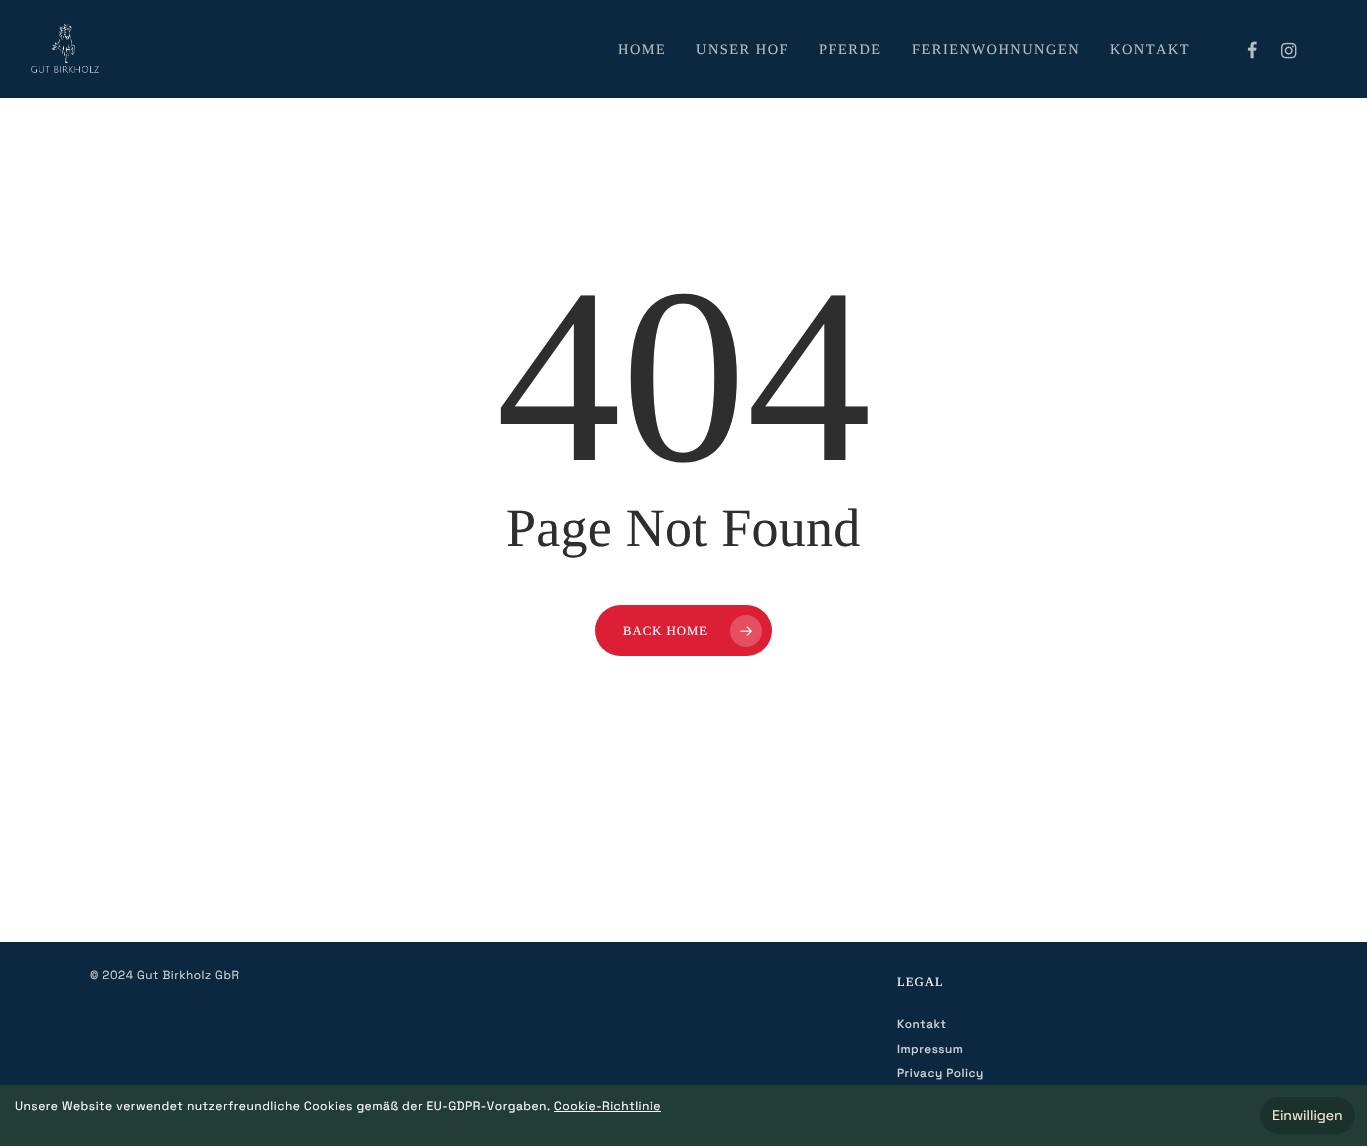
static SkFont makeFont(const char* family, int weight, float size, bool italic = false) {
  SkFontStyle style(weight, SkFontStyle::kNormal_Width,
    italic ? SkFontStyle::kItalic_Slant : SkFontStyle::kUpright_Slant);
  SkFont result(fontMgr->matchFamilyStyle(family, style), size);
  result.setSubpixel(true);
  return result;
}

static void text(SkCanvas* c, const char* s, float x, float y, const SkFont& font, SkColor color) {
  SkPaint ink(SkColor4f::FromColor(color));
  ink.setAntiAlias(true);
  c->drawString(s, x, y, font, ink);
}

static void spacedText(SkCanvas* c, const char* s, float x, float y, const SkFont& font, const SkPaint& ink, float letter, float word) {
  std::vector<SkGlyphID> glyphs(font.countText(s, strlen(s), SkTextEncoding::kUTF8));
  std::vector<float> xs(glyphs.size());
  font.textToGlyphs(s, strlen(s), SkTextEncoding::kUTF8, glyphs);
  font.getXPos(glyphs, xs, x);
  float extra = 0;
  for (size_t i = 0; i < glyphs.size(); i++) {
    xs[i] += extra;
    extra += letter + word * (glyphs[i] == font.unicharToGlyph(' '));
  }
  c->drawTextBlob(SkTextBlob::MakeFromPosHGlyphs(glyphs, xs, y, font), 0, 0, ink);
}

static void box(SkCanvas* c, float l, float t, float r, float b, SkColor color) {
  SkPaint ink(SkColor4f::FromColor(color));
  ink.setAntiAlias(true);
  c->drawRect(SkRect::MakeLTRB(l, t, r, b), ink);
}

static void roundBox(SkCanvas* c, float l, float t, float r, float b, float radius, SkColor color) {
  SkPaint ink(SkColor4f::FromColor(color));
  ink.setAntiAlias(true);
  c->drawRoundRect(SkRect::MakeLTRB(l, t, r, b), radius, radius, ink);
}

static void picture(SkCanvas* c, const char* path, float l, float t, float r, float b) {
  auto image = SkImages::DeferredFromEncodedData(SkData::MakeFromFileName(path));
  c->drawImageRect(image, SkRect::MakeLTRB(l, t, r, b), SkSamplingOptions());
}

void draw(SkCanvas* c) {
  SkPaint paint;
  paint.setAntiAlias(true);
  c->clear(0xffffffff);
  box(c, 0, 0, 1367, 98, 0xff0c2740);
  picture(c, "img_01.png", 31, 23, 99, 73);
  SkFont face1 = makeFont("Liberation Serif", 400, 14.4f);
  paint.setColor(0xffb6bec5);
  spacedText(c, "HOME", 618, 54, face1, paint, 1.5f, 0);
  spacedText(c, "UNSER HOF", 696, 54, face1, paint, 1.5f, 0);
  spacedText(c, "PFERDE", 819, 54, face1, paint, 1.5f, 0);
  spacedText(c, "FERIENWOHNUNGEN", 912, 54, face1, paint, 1.5f, 0);
  spacedText(c, "KONTAKT", 1110, 54, face1, paint, 1.5f, 0);
  picture(c, "img_02.png", 1247, 41, 1257, 59);
  picture(c, "img_03.png", 1281, 42, 1297, 59);
  SkFont face2 = makeFont("Liberation Serif", 400, 250);
  paint.setColor(0xff2e2e2e);
  spacedText(c, "404", 496, 460, face2, paint, 0.25f, 0);
  SkFont face3 = makeFont("Liberation Serif", 400, 54);
  spacedText(c, "Page Not Found", 506, 546, face3, paint, 0.25f, 0);
  roundBox(c, 595, 605, 772, 656, 25.5f, 0xffdc1f35);
  SkFont face4 = makeFont("Liberation Serif", 400, 12.75f);
  paint.setColor(0xfffffefe);
  spacedText(c, "BACK HOME", 623, 635, face4, paint, 1, 0);
  paint.setColor(0xffe45061);
  c->drawCircle(746, 631, 16, paint);
  picture(c, "img_04.png", 740, 626, 752, 636);
  box(c, 0, 942, 1367, 1085, 0xff0c2740);
  SkFont face5 = makeFont("Space Grotesk", 400, 11.8f);
  paint.setColor(0xffced3d8);
  spacedText(c, "© 2024 Gut Birkholz GbR", 90, 979, face5, paint, 0.5f, 0);
  paint.setColor(0xfffffefe);
  spacedText(c, "LEGAL", 897, 986, face4, paint, 1, 0);
  SkFont face6 = makeFont("Space Grotesk", 500, 11.8f);
  paint.setColor(0xffced3d8);
  spacedText(c, "Kontakt", 897, 1028, face6, paint, 0.5f, 0);
  spacedText(c, "Impressum", 897, 1053, face6, paint, 0.5f, 0);
  spacedText(c, "Privacy Policy", 897, 1077, face6, paint, 0.5f, 0);
  box(c, 0, 1085, 1367, 1146, 0xff223c36);
  SkFont face7 = makeFont("Space Grotesk", 400, 12);
  paint.setColor(0xfffffefe);
  spacedText(c, "Unsere Website verwendet nutzerfreundliche Cookies gemäß der EU-GDPR-Vorgaben. Cookie-Richtlinie", 15, 1110, face7, paint, 0.5f, 0);
  box(c, 554, 1111, 661, 1112, 0xffffffff);
  roundBox(c, 1260, 1097, 1355, 1134, 18.5f, 0xff1b312c);
  SkFont face8 = makeFont("Space Grotesk", 400, 14);
  text(c, "Einwilligen", 1272, 1120, face8, 0xfff8ebdc);
}
